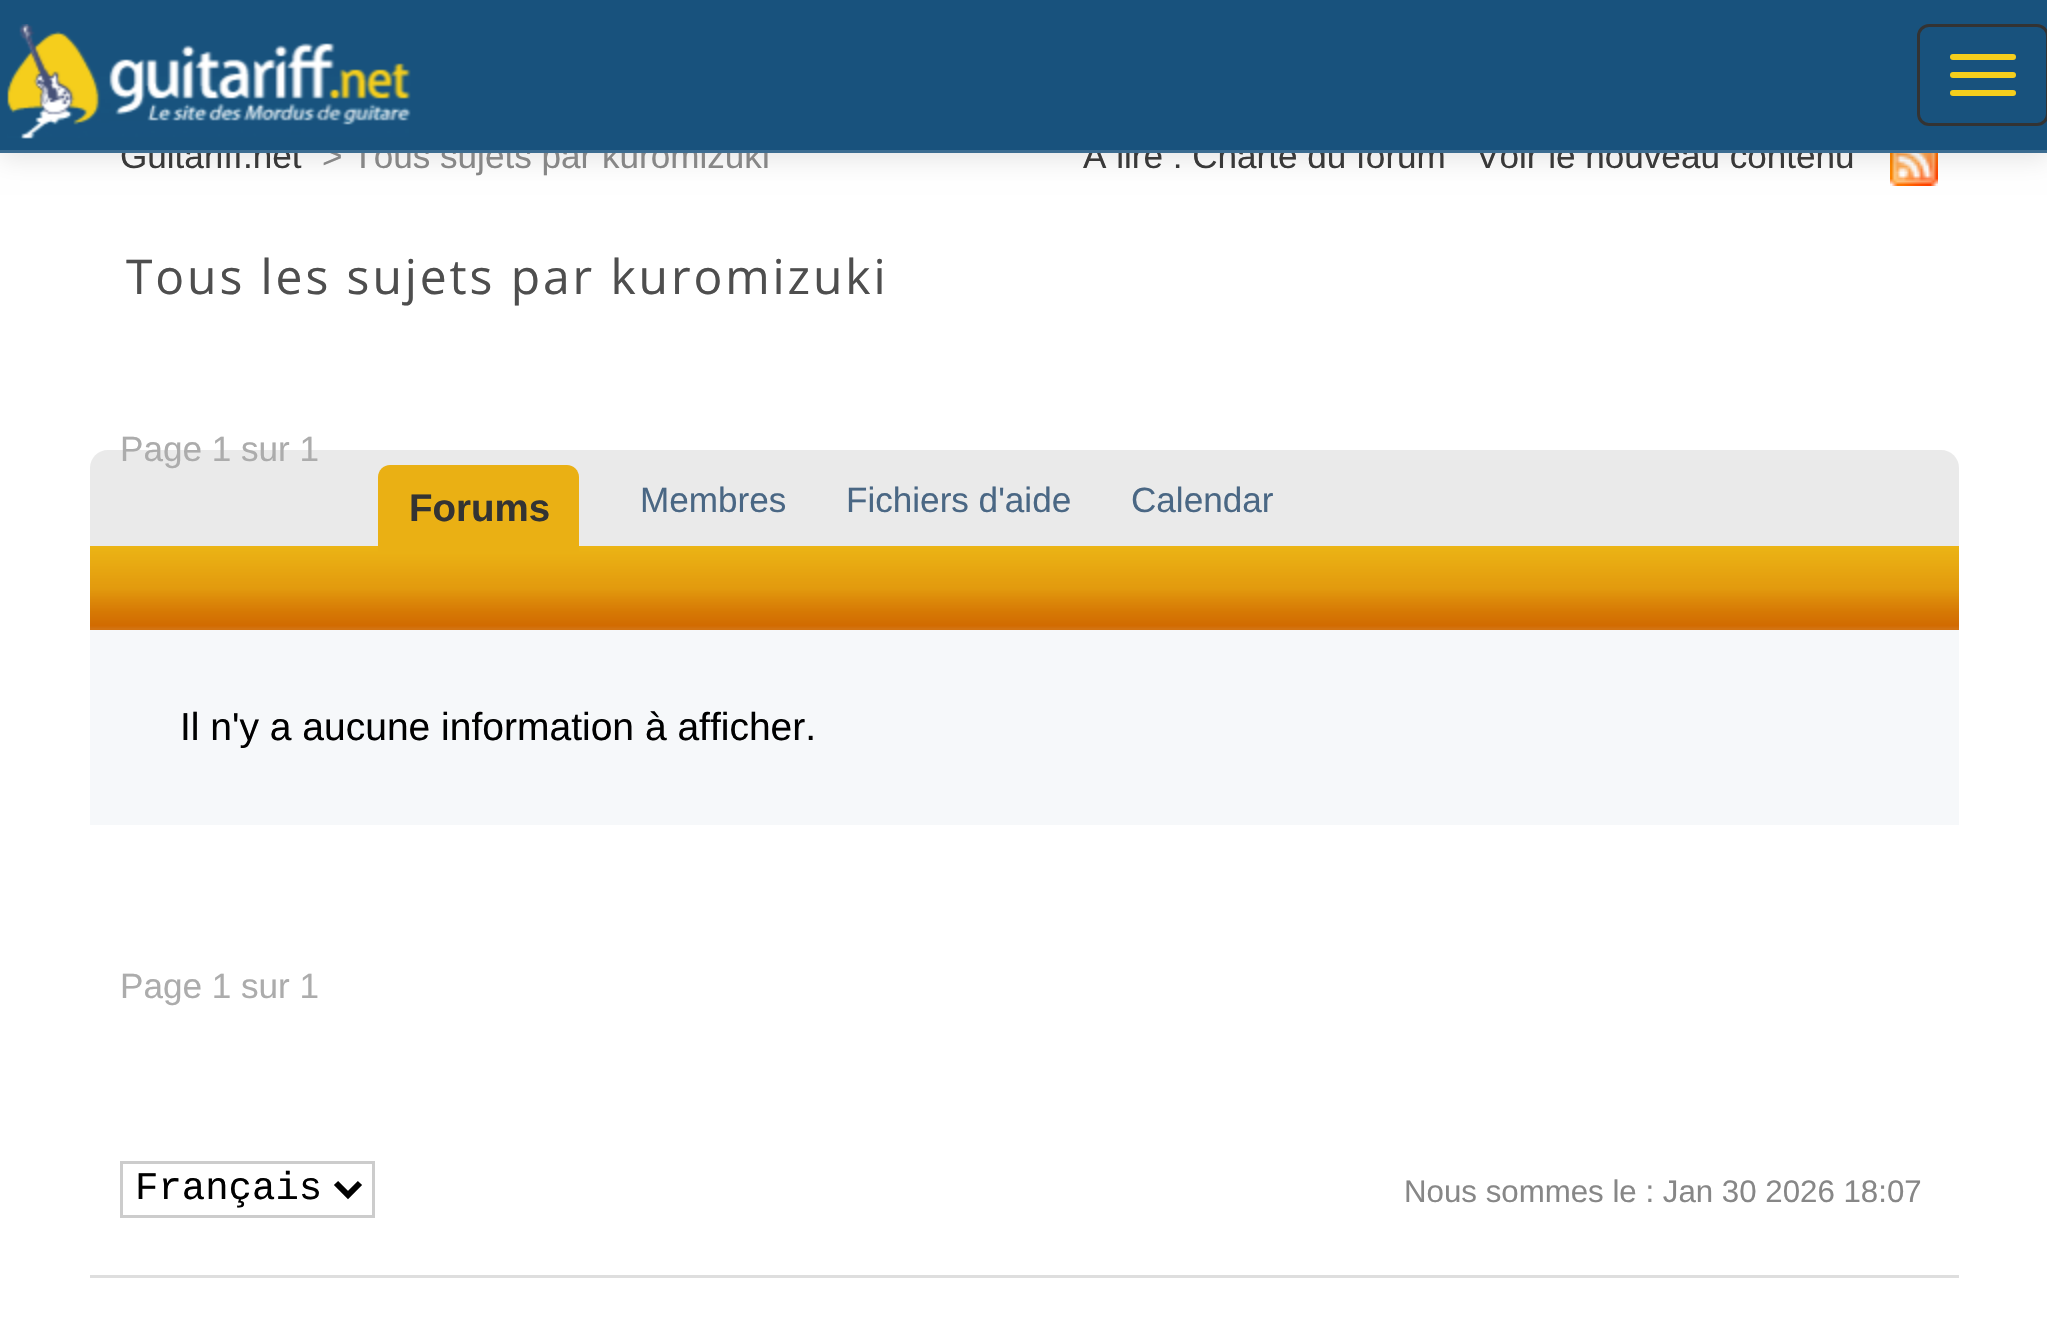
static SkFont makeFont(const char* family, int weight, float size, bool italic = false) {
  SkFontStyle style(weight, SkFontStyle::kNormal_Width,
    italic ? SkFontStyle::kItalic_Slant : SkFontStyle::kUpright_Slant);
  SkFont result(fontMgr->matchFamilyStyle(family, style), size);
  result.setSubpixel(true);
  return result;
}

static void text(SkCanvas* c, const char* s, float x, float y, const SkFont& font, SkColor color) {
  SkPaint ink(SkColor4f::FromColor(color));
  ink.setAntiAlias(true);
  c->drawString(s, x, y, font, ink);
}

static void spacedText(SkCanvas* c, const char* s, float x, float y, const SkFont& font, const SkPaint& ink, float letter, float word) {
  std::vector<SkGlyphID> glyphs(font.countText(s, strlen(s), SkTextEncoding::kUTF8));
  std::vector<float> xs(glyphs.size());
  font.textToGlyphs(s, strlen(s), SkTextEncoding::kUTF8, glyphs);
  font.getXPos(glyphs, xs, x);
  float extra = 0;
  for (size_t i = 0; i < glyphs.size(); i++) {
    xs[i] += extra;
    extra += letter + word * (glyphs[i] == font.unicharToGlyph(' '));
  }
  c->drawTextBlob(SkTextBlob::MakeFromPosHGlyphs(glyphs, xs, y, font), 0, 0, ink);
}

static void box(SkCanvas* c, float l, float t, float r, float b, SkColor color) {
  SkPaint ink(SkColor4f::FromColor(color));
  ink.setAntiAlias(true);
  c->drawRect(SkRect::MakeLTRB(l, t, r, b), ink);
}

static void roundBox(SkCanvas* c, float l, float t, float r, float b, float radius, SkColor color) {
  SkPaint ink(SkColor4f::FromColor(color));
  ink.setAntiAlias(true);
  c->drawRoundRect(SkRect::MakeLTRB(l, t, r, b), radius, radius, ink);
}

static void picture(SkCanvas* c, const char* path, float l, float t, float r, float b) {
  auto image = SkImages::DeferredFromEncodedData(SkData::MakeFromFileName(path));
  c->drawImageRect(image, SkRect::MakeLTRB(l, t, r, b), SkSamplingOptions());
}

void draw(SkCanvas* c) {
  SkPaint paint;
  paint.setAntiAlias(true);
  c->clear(0xffffffff);
  picture(c, "img_02.png", 1890, 153, 1938, 186);
  paint.setColor(0x1a000000);
  paint.setMaskFilter(SkMaskFilter::MakeBlur(kNormal_SkBlurStyle, 12));
  c->drawRect(SkRect::MakeLTRB(0, 6, 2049, 159), paint);
  paint.setMaskFilter(nullptr);
  SkFont face1 = makeFont("Liberation Sans", 400, 35.1f);
  text(c, "Guitariff.net", 120, 168, face1, 0xff393939);
  text(c, "> Tous sujets par kuromizuki", 322, 168, face1, 0xff878787);
  text(c, "A lire : Charte du forum", 1083, 168, face1, 0xff393939);
  text(c, "Voir le nouveau contenu", 1476, 168, face1, 0xff393939);
  box(c, 0, 0, 2047, 150, 0xff18527d);
  box(c, 0, 150, 2047, 153, 0xff3b6c91);
  picture(c, "img_01.png", 7, 24, 411, 139);
  paint.setStyle(SkPaint::kStroke_Style);
  paint.setStrokeWidth(3);
  paint.setColor(0xff333333);
  c->drawRoundRect(SkRect::MakeLTRB(1918.5f, 25.5f, 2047.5f, 124.5f), 10.5f, 10.5f, paint);
  roundBox(c, 1950, 54, 2016, 60, 3, 0xfff5ce1c);
  roundBox(c, 1950, 72, 2016, 78, 3, 0xfff5ce1c);
  roundBox(c, 1950, 90, 2016, 96, 3, 0xfff5ce1c);
  SkFont face2 = makeFont("Open Sans", 400, 48);
  paint.setStyle(SkPaint::kFill_Style);
  paint.setColor(0xff4e4e4e);
  spacedText(c, "Tous les sujets par kuromizuki", 126, 294, face2, paint, 2.9f, 0);
  paint.setColor(0xffeaeaea);
  c->drawPath(SkPathBuilder().moveTo(108, 450).lineTo(1941, 450).cubicTo(1951, 450, 1959, 458, 1959, 468).lineTo(1959, 630).lineTo(90, 630).lineTo(90, 468).cubicTo(90, 458, 98, 450, 108, 450).close().detach(), paint);
  text(c, "Page 1 sur 1", 120, 461, face1, 0xffacacac);
  picture(c, "img_03.png", 90, 546, 1959, 630);
  paint.setColor(0xffeab014);
  c->drawPath(SkPathBuilder().moveTo(390, 465).lineTo(567, 465).cubicTo(573.5f, 465, 579, 470.5f, 579, 477).lineTo(579, 552).lineTo(378, 552).lineTo(378, 477).cubicTo(378, 470.5f, 383.5f, 465, 390, 465).close().detach(), paint);
  SkFont face3 = makeFont("Liberation Sans", 700, 38.5f);
  text(c, "Forums", 409, 521, face3, 0xff333333);
  text(c, "Membres", 640, 512, face1, 0xff4a6784);
  text(c, "Fichiers d'aide", 846, 512, face1, 0xff4a6784);
  text(c, "Calendar", 1131, 512, face1, 0xff4a6784);
  box(c, 90, 630, 1959, 825, 0xfff6f8fa);
  SkFont face4 = makeFont("Liberation Sans", 400, 39);
  text(c, "Il n'y a aucune information à afficher.", 180, 740, face4, 0xff000000);
  text(c, "Page 1 sur 1", 120, 998, face1, 0xffacacac);
  paint.setStyle(SkPaint::kStroke_Style);
  paint.setColor(0xffcccccc);
  c->drawRect(SkRect::MakeLTRB(121.5f, 1162.5f, 373.5f, 1216.5f), paint);
  paint.setStrokeWidth(6);
  paint.setColor(0xff000000);
  c->drawPath(SkPathBuilder().moveTo(336, 1183).lineTo(348, 1195).lineTo(360, 1183).detach(), paint);
  SkFont face5 = makeFont("Liberation Mono", 400, 39);
  text(c, "Français", 135, 1199, face5, 0xff000000);
  SkFont face6 = makeFont("Liberation Sans", 400, 31.25f);
  text(c, "Nous sommes le : Jan 30 2026 18:07", 1404, 1202, face6, 0xff878787);
  box(c, 90, 1275, 1959, 1278, 0xffdedede);
}
